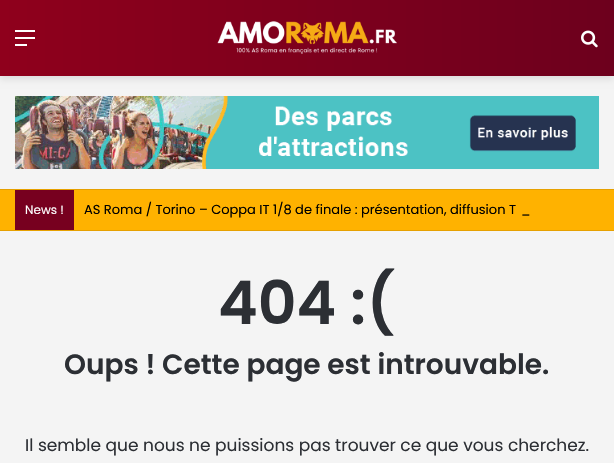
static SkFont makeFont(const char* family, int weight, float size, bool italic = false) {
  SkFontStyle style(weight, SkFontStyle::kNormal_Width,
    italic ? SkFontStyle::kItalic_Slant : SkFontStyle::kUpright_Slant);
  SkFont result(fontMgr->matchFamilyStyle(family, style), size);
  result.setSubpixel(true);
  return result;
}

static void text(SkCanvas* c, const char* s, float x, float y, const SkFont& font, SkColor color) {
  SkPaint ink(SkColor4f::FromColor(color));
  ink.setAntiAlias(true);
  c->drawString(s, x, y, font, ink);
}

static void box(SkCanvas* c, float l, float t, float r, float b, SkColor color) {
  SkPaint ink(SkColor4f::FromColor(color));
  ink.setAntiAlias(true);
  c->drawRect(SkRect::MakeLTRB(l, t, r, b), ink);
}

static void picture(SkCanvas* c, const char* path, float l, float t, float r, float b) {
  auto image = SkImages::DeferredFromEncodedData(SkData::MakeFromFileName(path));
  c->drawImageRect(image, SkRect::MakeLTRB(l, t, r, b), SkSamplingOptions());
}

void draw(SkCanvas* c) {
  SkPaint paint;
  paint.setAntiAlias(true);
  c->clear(0xfff4f4f4);
  paint.setColor(0x1a000000);
  paint.setMaskFilter(SkMaskFilter::MakeBlur(kNormal_SkBlurStyle, 3.5f));
  c->drawRect(SkRect::MakeLTRB(0, 3, 614, 79), paint);
  paint.setMaskFilter(nullptr);
  {
    const SkColor colors[] = {0xff8f001c, 0xff6d001d};
    const float stops[] = {0, 1};
    const SkPoint ends[] = {{0, 38}, {614, 38}};
    paint.setShader(SkGradientShader::MakeLinear(ends, colors, stops, 2, SkTileMode::kClamp));
    paint.setAlpha(255);
  }
  c->drawRect(SkRect::MakeLTRB(0, 0, 614, 76), paint);
  box(c, 15, 37, 35, 39, 0xffffffff);
  box(c, 15, 30, 35, 32, 0xffffffff);
  box(c, 15, 44, 27, 46, 0xffffffff);
  picture(c, "img_01.png", 217, 21, 397, 54);
  picture(c, "img_02.png", 581, 30, 598, 48);
  picture(c, "img_03.png", 15, 96, 599, 169);
  box(c, 0, 190, 614, 230, 0xffffb200);
  box(c, 0, 189, 614, 190, 0xffe6a000);
  box(c, 0, 230, 614, 231, 0xffe6a000);
  box(c, 15, 190, 74, 230, 0xff77001f);
  SkFont face1 = makeFont("Poppins", 400, 12);
  text(c, "News !", 25, 214, face1, 0xffffffff);
  SkFont face2 = makeFont("Poppins", 400, 13);
  text(c, "AS Roma / Torino – Coppa IT 1/8 de finale : présentation, diffusion T", 84, 214, face2, 0xff000000);
  text(c, "_", 521, 214, face2, 0xff000000);
  SkFont face3 = makeFont("Poppins", 600, 60);
  text(c, "404 :(", 218, 324, face3, 0xff2c2f34);
  SkFont face4 = makeFont("Poppins", 600, 28);
  text(c, "Oups ! Cette page est introuvable.", 64, 374, face4, 0xff2c2f34);
  SkFont face5 = makeFont("Poppins", 400, 17);
  text(c, "Il semble que nous ne puissions pas trouver ce que vous cherchez.", 25, 451, face5, 0xff2c2f34);
}
